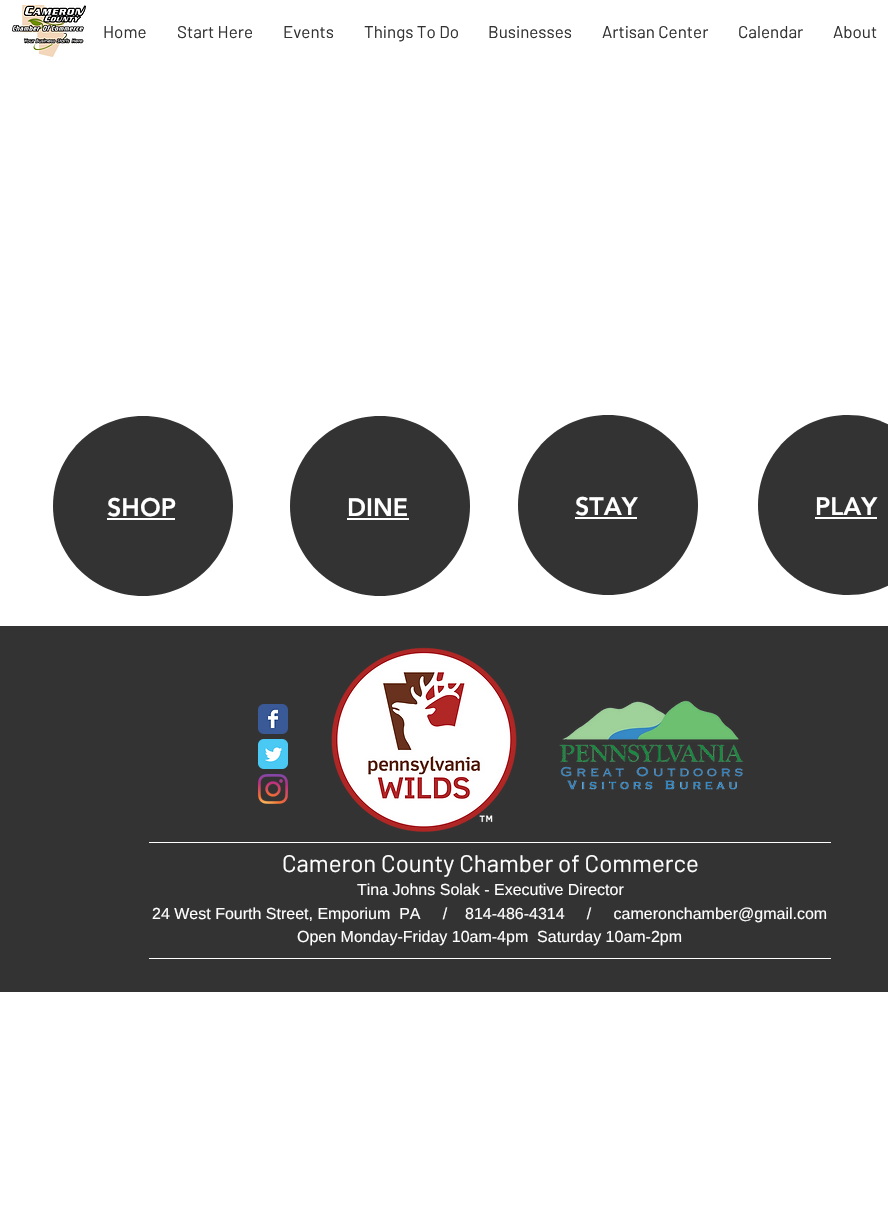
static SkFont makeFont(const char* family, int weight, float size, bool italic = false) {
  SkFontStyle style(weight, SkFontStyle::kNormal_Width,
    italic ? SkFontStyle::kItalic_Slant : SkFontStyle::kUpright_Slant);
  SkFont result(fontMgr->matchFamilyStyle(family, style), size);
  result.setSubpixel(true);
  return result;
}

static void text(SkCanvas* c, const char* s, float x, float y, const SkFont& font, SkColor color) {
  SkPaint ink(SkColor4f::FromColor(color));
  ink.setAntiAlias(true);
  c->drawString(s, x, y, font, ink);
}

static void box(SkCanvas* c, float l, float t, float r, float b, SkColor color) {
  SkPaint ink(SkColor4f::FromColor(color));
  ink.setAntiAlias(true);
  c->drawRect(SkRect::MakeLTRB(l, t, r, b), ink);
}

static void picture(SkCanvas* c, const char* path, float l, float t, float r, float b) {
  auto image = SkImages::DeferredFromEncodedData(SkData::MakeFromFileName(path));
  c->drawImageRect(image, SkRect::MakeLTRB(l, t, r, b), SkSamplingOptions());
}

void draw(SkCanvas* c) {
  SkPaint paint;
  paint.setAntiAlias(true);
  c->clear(0xffffffff);
  picture(c, "img_01.png", 12, 5, 86, 57);
  SkFont face1 = makeFont("Barlow", 400, 17);
  text(c, "Home", 103, 38, face1, 0xff333333);
  text(c, "Start Here", 177, 38, face1, 0xff333333);
  text(c, "Events", 283, 38, face1, 0xff333333);
  text(c, "Things To Do", 364, 38, face1, 0xff333333);
  text(c, "Businesses", 488, 38, face1, 0xff333333);
  text(c, "Artisan Center", 602, 38, face1, 0xff333333);
  text(c, "Calendar", 738, 38, face1, 0xff333333);
  text(c, "About", 833, 38, face1, 0xff333333);
  paint.setColor(0xff333333);
  c->drawPath(SkPathBuilder().moveTo(233, 506).cubicTo(233, 556, 193, 596, 143, 596).cubicTo(93, 596, 53, 556, 53, 506).cubicTo(53, 456, 93, 416, 143, 416).cubicTo(193, 416, 233, 456, 233, 506).close().detach(), paint);
  SkFont face2 = makeFont("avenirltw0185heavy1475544", 900, 25);
  text(c, "SHOP", 107, 516, face2, 0xffffffff);
  box(c, 107, 518, 175, 520, 0xffffffff);
  c->drawPath(SkPathBuilder().moveTo(470, 506).cubicTo(470, 556, 430, 596, 380, 596).cubicTo(330, 596, 290, 556, 290, 506).cubicTo(290, 456, 330, 416, 380, 416).cubicTo(430, 416, 470, 456, 470, 506).close().detach(), paint);
  text(c, "DINE", 347, 516, face2, 0xffffffff);
  box(c, 347, 518, 409, 520, 0xffffffff);
  c->drawPath(SkPathBuilder().moveTo(698, 505).cubicTo(698, 555, 658, 595, 608, 595).cubicTo(558, 595, 518, 555, 518, 505).cubicTo(518, 455, 558, 415, 608, 415).cubicTo(658, 415, 698, 455, 698, 505).close().detach(), paint);
  text(c, "STAY", 575, 515, face2, 0xffffffff);
  box(c, 575, 517, 637, 519, 0xffffffff);
  c->drawPath(SkPathBuilder().moveTo(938, 505).cubicTo(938, 555, 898, 595, 848, 595).cubicTo(798, 595, 758, 555, 758, 505).cubicTo(758, 455, 798, 415, 848, 415).cubicTo(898, 415, 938, 455, 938, 505).close().detach(), paint);
  text(c, "PLAY", 815, 515, face2, 0xffffffff);
  box(c, 815, 517, 877, 519, 0xffffffff);
  box(c, 0, 626, 888, 992, 0xff333333);
  picture(c, "img_02.png", 258, 704, 288, 734);
  picture(c, "img_03.png", 258, 739, 288, 769);
  picture(c, "img_04.png", 258, 774, 288, 804);
  picture(c, "img_05.png", 331, 647, 517, 832);
  picture(c, "img_06.png", 559, 700, 744, 790);
  box(c, 149, 842, 831, 843, 0xffffffff);
  SkFont face3 = makeFont("Barlow", 400, 24);
  text(c, "Cameron County Chamber of Commerce", 282, 872, face3, 0xffffffff);
  SkFont face4 = makeFont("Liberation Sans", 400, 16);
  text(c, "Tina Johns Solak - Executive Director", 357, 895, face4, 0xffffffff);
  text(c, "24 West Fourth Street, Emporium  PA     /    814-486-4314     /     cameronchamber@gmail.com", 152, 919, face4, 0xffffffff);
  text(c, "Open Monday-Friday 10am-4pm  Saturday 10am-2pm", 297, 942, face4, 0xffffffff);
  box(c, 149, 958, 831, 959, 0xffffffff);
}
